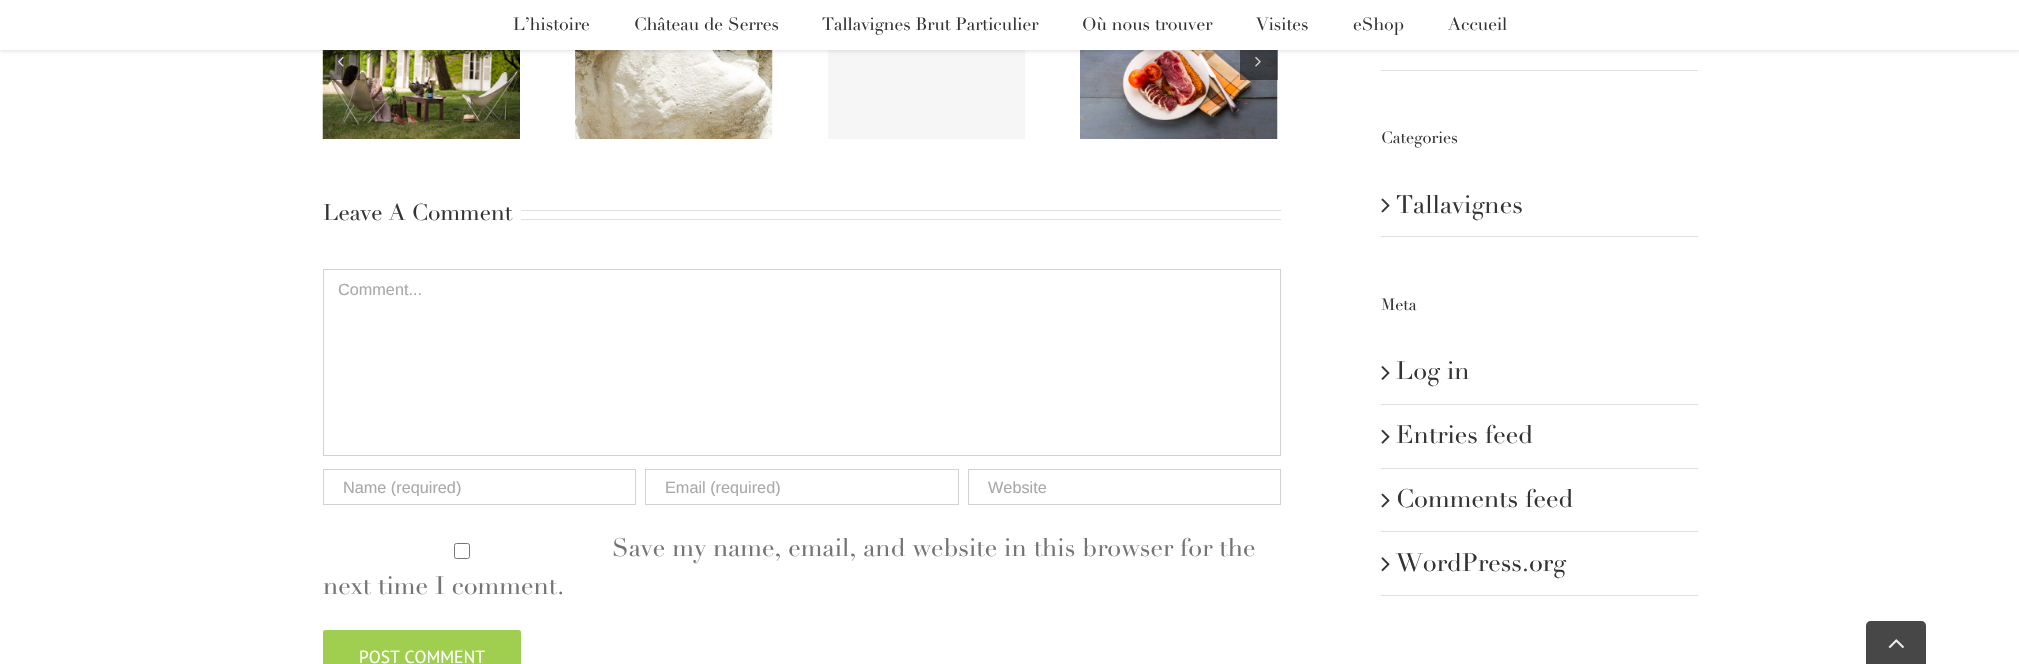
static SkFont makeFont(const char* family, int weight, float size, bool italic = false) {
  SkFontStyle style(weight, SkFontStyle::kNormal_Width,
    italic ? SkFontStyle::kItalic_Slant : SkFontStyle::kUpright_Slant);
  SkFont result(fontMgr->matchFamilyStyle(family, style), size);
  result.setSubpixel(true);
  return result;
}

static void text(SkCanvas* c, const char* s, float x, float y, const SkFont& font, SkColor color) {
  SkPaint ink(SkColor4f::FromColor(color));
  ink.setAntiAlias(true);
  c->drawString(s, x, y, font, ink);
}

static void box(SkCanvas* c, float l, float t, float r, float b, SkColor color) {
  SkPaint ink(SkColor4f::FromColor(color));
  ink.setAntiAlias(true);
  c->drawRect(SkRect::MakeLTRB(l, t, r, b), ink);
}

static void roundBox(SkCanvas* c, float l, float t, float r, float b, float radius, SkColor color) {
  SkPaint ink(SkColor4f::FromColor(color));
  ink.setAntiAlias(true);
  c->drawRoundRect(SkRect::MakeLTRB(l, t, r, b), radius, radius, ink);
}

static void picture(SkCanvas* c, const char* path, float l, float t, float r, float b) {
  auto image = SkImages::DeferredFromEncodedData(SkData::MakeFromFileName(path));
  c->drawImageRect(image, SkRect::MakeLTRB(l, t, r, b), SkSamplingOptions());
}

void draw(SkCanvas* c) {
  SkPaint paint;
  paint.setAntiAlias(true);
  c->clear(0xffffffff);
  picture(c, "img_01.png", 322, 50, 520, 139);
  picture(c, "img_02.png", 575, 50, 773, 139);
  box(c, 828, 50, 1025, 139, 0xfff6f6f6);
  picture(c, "img_03.png", 1080, 50, 1278, 139);
  box(c, 323, 50, 360, 80, 0x7a000000);
  picture(c, "img_04.png", 338, 56, 344, 67);
  box(c, 1240, 50, 1278, 80, 0x7a000000);
  picture(c, "img_05.png", 1255, 56, 1261, 67);
  paint.setColor(0x1f000000);
  paint.setMaskFilter(SkMaskFilter::MakeBlur(kNormal_SkBlurStyle, 2));
  c->drawRect(SkRect::MakeLTRB(0, 1, 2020, 51), paint);
  paint.setMaskFilter(nullptr);
  box(c, 0, 0, 2019, 50, 0xffffffff);
  SkFont face1 = makeFont("Didot", 400, 17.5f);
  text(c, "L’histoire", 513, 30, face1, 0xff333333);
  text(c, "Château de Serres", 634, 30, face1, 0xff333333);
  text(c, "Tallavignes Brut Particulier", 822, 30, face1, 0xff333333);
  text(c, "Où nous trouver", 1082, 30, face1, 0xff333333);
  text(c, "Visites", 1256, 30, face1, 0xff333333);
  text(c, "eShop", 1353, 30, face1, 0xff333333);
  text(c, "Accueil", 1448, 30, face1, 0xff333333);
  SkFont face2 = makeFont("Didot", 400, 22.5f);
  text(c, "Leave A Comment", 323, 220, face2, 0xff333333);
  box(c, 521, 210, 1281, 211, 0xffe0dede);
  box(c, 521, 219, 1281, 220, 0xffe0dede);
  paint.setStyle(SkPaint::kStroke_Style);
  paint.setStrokeWidth(1);
  paint.setColor(0xffd2d2d2);
  c->drawRect(SkRect::MakeLTRB(323.5f, 269.5f, 1280.5f, 455.5f), paint);
  SkFont face3 = makeFont("Liberation Sans", 400, 16.25f);
  text(c, "Comment...", 338, 295, face3, 0xffaaa9a9);
  c->drawRect(SkRect::MakeLTRB(323.5f, 469.5f, 635.5f, 504.5f), paint);
  c->save();
  c->clipRect(SkRect::MakeLTRB(343, 478, 616, 496));
  text(c, "Name (required)", 343, 493, face3, 0xffaaa9a9);
  c->restore();
  c->drawRect(SkRect::MakeLTRB(645.5f, 469.5f, 958.5f, 504.5f), paint);
  c->save();
  c->clipRect(SkRect::MakeLTRB(665, 478, 939, 496));
  text(c, "Email (required)", 665, 493, face3, 0xffaaa9a9);
  c->restore();
  c->drawRect(SkRect::MakeLTRB(968.5f, 469.5f, 1280.5f, 504.5f), paint);
  text(c, "Website", 988, 493, face3, 0xffaaa9a9);
  paint.setColor(0xff767676);
  c->drawRoundRect(SkRect::MakeLTRB(454.5f, 543.5f, 469.5f, 558.5f), 2, 2, paint);
  SkFont face4 = makeFont("Didot", 400, 25);
  text(c, "Save my name, email, and website in this browser for the", 612, 556, face4, 0xff747474);
  text(c, "next time I comment.", 323, 594, face4, 0xff747474);
  roundBox(c, 323, 630, 521, 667, 2.5f, 0xffa0ce4e);
  SkFont face5 = makeFont("PT Sans", 400, 17.5f);
  text(c, "POST COMMENT", 359, 663, face5, 0xffffffff);
  box(c, 1381, 70, 1698, 71, 0xffe0dede);
  SkFont face6 = makeFont("Didot", 400, 16.25f);
  text(c, "Categories", 1381, 143, face6, 0xff333333);
  box(c, 1381, 236, 1698, 237, 0xffe0dede);
  picture(c, "img_06.png", 1381, 198, 1390, 213);
  text(c, "Tallavignes", 1396, 213, face4, 0xff333333);
  text(c, "Meta", 1381, 310, face6, 0xff333333);
  box(c, 1381, 404, 1698, 405, 0xffe0dede);
  picture(c, "img_07.png", 1381, 366, 1390, 380);
  text(c, "Log in", 1396, 379, face4, 0xff333333);
  box(c, 1381, 468, 1698, 469, 0xffe0dede);
  picture(c, "img_08.png", 1381, 429, 1390, 444);
  text(c, "Entries feed", 1396, 443, face4, 0xff333333);
  box(c, 1381, 531, 1698, 532, 0xffe0dede);
  picture(c, "img_06.png", 1381, 493, 1390, 508);
  text(c, "Comments feed", 1396, 507, face4, 0xff333333);
  box(c, 1381, 595, 1698, 596, 0xffe0dede);
  picture(c, "img_09.png", 1381, 557, 1390, 572);
  text(c, "WordPress.org", 1396, 571, face4, 0xff333333);
  paint.setStyle(SkPaint::kFill_Style);
  paint.setColor(0xff474747);
  c->drawPath(SkPathBuilder().moveTo(1871, 621).lineTo(1921, 621).cubicTo(1924, 621, 1926, 623, 1926, 626).lineTo(1926, 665).lineTo(1866, 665).lineTo(1866, 626).cubicTo(1866, 623, 1868, 621, 1871, 621).close().detach(), paint);
  picture(c, "img_10.png", 1888, 639, 1904, 649);
}
